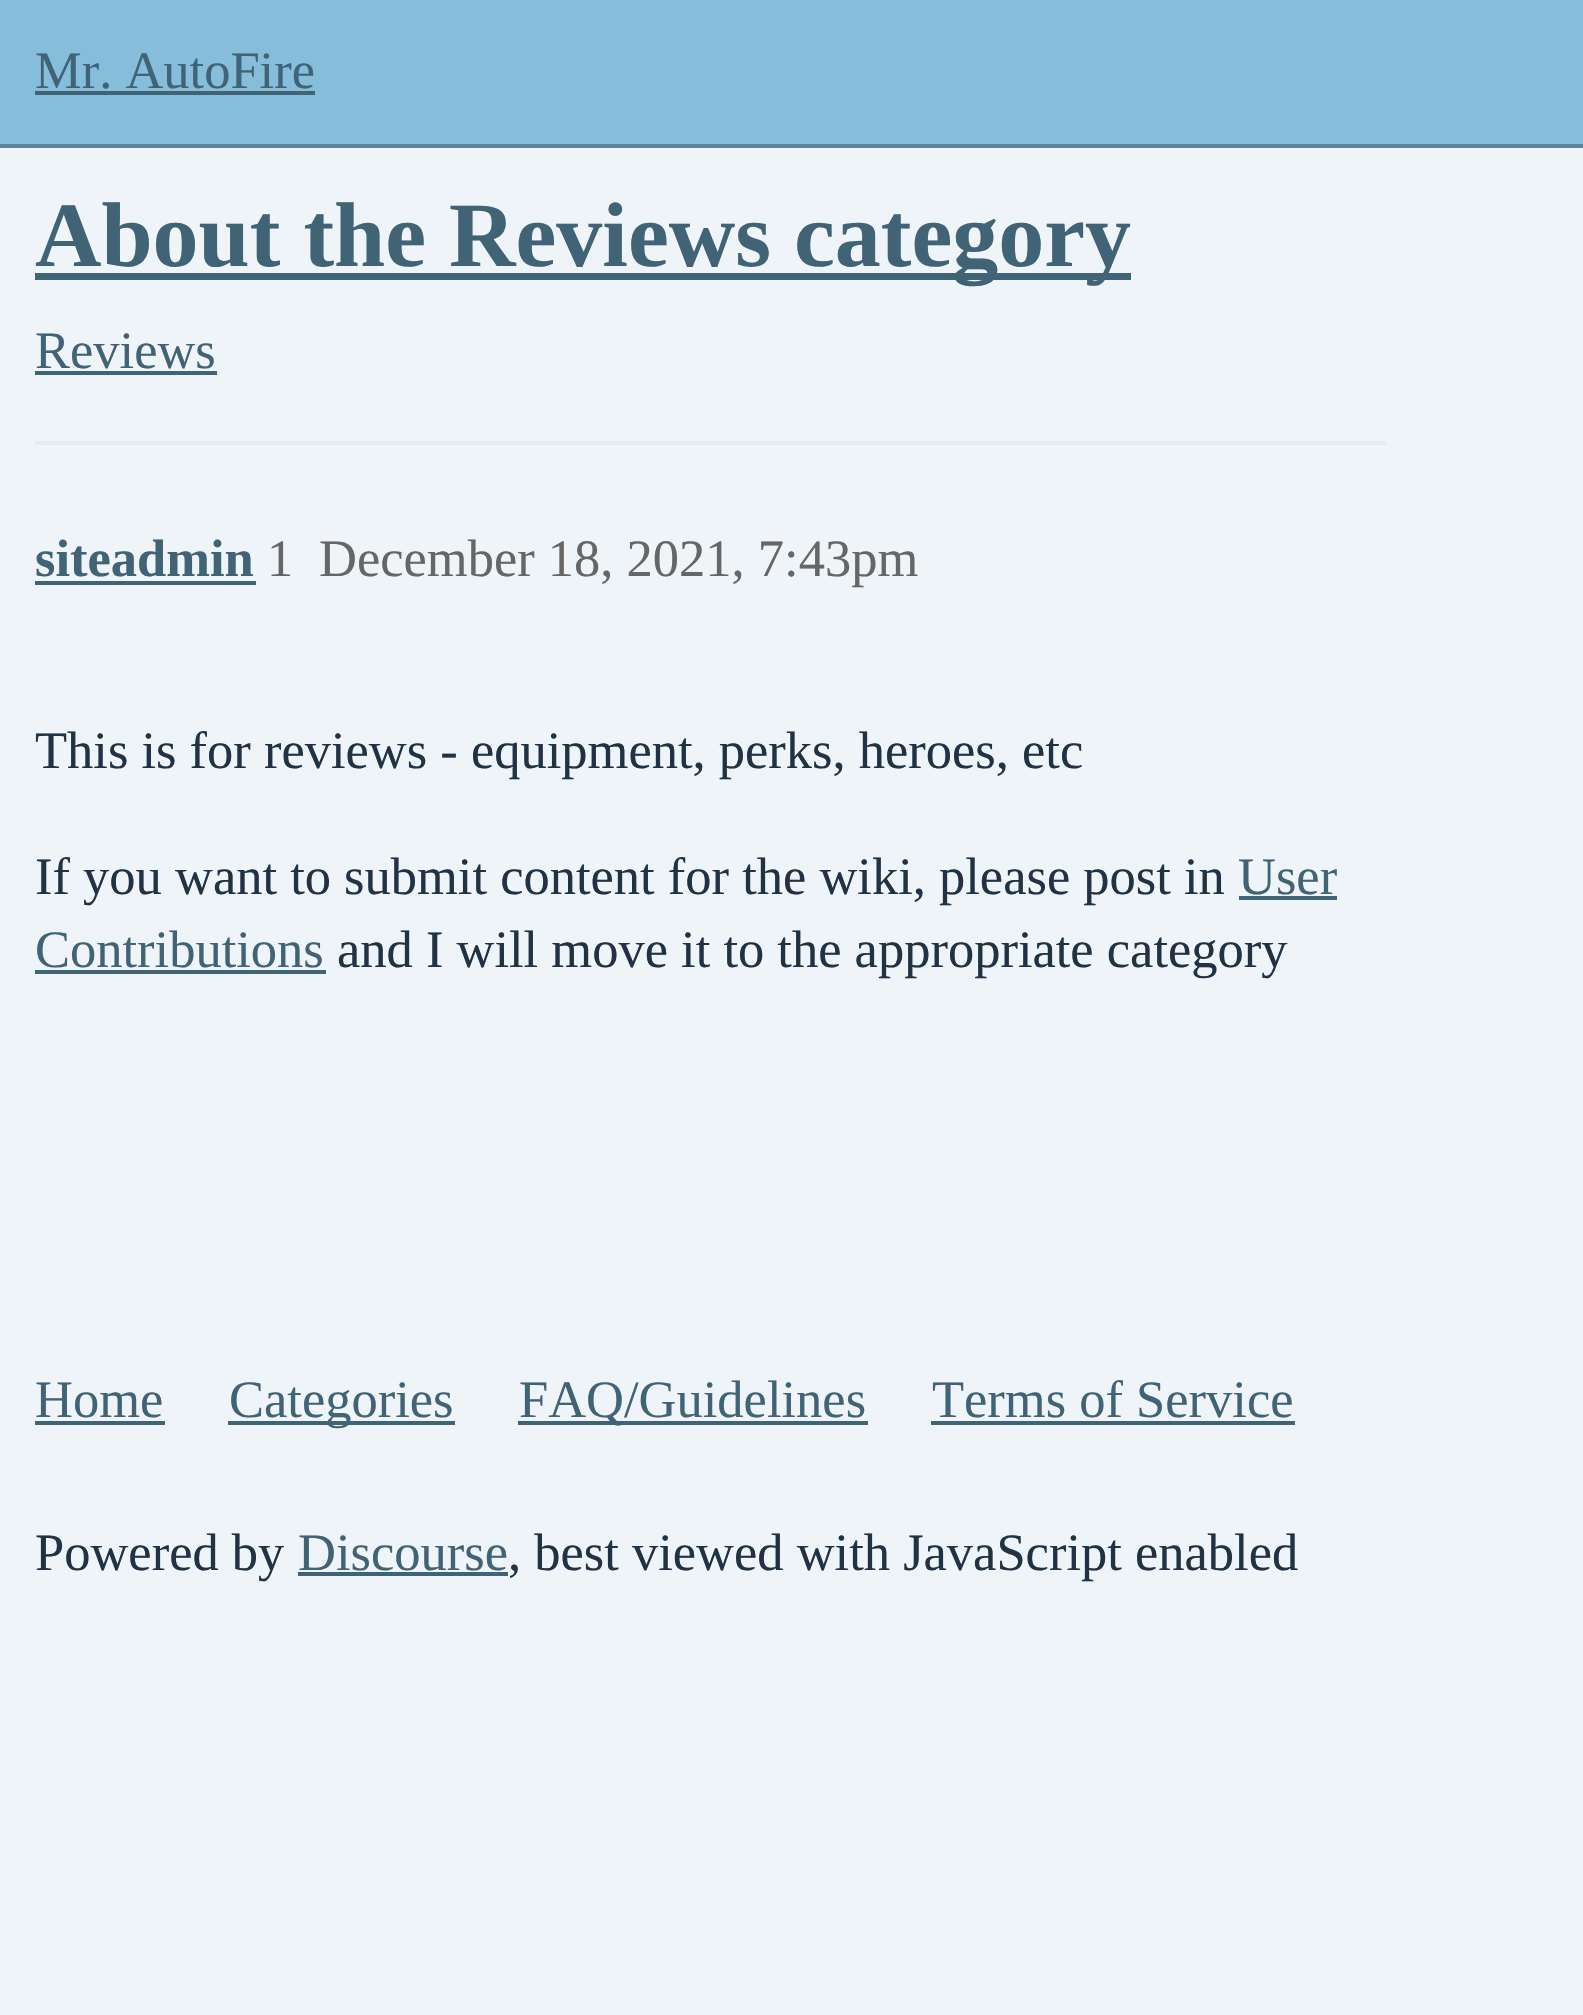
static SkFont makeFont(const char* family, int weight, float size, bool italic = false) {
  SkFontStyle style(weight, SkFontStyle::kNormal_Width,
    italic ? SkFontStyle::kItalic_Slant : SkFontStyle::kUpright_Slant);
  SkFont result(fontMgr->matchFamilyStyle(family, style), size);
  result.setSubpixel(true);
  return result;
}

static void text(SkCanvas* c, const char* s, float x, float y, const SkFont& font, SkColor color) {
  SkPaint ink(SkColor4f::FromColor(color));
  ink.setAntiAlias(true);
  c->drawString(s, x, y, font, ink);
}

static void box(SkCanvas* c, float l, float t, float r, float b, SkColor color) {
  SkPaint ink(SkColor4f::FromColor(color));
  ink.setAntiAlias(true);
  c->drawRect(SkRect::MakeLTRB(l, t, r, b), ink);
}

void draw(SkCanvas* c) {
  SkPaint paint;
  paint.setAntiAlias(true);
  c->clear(0xffeef4f7);
  box(c, 0, 0, 1583, 144, 0xff86bddb);
  box(c, 0, 144, 1583, 148, 0xff5d849b);
  SkFont face1 = makeFont("Liberation Serif", 400, 52.5f);
  text(c, "Mr. AutoFire", 35, 88, face1, 0xff416376);
  box(c, 35, 91, 315, 95, 0xff416376);
  box(c, 35, 273, 1131, 280, 0xff416376);
  SkFont face2 = makeFont("Liberation Serif", 700, 92);
  text(c, "About the Reviews category", 35, 266, face2, 0xff416376);
  text(c, "Reviews", 35, 368, face1, 0xff416376);
  box(c, 35, 371, 217, 375, 0xff416376);
  box(c, 35, 441, 1386, 445, 0xffe3ebf2);
  SkFont face3 = makeFont("Liberation Serif", 700, 52.5f);
  text(c, "siteadmin", 35, 576, face3, 0xff416376);
  box(c, 35, 581, 256, 585, 0xff416376);
  text(c, "1", 267, 576, face1, 0xff666666);
  text(c, "December 18, 2021, 7:43pm", 319, 576, face1, 0xff666666);
  text(c, "This is for reviews - equipment, perks, heroes, etc", 35, 768, face1, 0xff203243);
  text(c, "If you want to submit content for the wiki, please post in", 35, 894, face1, 0xff203243);
  text(c, "User", 1238, 894, face1, 0xff416376);
  box(c, 1239, 896, 1337, 900, 0xff416376);
  text(c, "Contributions", 35, 967, face1, 0xff416376);
  box(c, 35, 970, 326, 974, 0xff416376);
  text(c, "and I will move it to the appropriate category", 337, 967, face1, 0xff203243);
  text(c, "Home", 35, 1417, face1, 0xff416376);
  box(c, 35, 1421, 165, 1425, 0xff416376);
  box(c, 228, 1421, 455, 1425, 0xff416376);
  text(c, "Categories", 229, 1417, face1, 0xff416376);
  box(c, 518, 1421, 868, 1425, 0xff416376);
  text(c, "FAQ/Guidelines", 519, 1417, face1, 0xff416376);
  text(c, "Terms of Service", 932, 1417, face1, 0xff416376);
  box(c, 931, 1421, 1295, 1425, 0xff416376);
  text(c, "Powered by", 35, 1570, face1, 0xff203243);
  text(c, "Discourse", 298, 1570, face1, 0xff416376);
  box(c, 298, 1572, 508, 1576, 0xff416376);
  text(c, ", best viewed with JavaScript enabled", 508, 1570, face1, 0xff203243);
}
